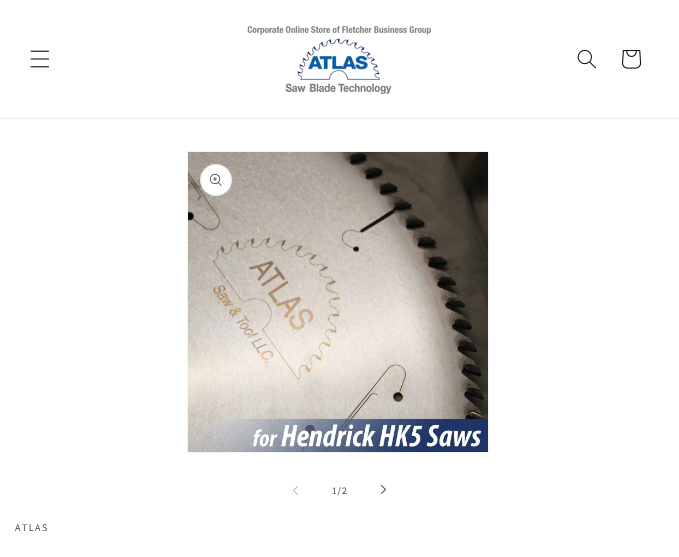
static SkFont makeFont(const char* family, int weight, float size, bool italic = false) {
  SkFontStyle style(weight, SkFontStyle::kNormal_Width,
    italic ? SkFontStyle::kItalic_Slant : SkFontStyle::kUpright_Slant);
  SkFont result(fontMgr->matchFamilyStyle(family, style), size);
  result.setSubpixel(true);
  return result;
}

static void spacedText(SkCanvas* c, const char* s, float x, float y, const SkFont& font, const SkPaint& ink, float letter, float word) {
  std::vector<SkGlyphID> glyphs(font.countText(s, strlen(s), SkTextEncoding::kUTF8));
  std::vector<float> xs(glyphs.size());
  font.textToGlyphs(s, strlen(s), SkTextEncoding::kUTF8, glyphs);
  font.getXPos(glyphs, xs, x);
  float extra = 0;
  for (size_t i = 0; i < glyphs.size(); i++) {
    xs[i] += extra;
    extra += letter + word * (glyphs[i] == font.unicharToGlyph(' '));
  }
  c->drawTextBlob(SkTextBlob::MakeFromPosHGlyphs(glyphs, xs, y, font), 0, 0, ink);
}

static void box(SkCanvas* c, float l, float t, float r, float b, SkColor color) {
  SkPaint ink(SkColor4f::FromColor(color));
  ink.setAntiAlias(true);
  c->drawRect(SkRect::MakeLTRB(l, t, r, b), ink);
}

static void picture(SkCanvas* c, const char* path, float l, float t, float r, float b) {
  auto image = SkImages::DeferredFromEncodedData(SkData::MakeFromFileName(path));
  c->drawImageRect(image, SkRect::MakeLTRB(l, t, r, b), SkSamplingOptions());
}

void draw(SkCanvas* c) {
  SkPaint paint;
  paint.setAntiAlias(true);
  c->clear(0xffffffff);
  box(c, 0, 118, 679, 119, 0xffececec);
  picture(c, "img_01.png", 30, 50, 50, 68);
  picture(c, "img_02.png", 247, 26, 431, 94);
  picture(c, "img_03.png", 577, 49, 596, 69);
  picture(c, "img_04.png", 622, 50, 642, 69);
  paint.setStyle(SkPaint::kStroke_Style);
  paint.setStrokeWidth(1);
  paint.setColor(0xfff3f3f3);
  c->drawRect(SkRect::MakeLTRB(187.5f, 151.5f, 488.5f, 452.5f), paint);
  picture(c, "img_05.png", 188, 152, 488, 452);
  paint.setStyle(SkPaint::kFill_Style);
  paint.setColor(0xffffffff);
  c->drawCircle(216, 180, 16, paint);
  paint.setStyle(SkPaint::kStroke_Style);
  paint.setColor(0x1a121212);
  c->drawCircle(216, 180, 15.5f, paint);
  picture(c, "img_06.png", 210, 174, 222, 186);
  picture(c, "img_07.png", 293, 486, 298, 495);
  SkFont face1 = makeFont("Assistant", 400, 10);
  paint.setStyle(SkPaint::kFill_Style);
  paint.setColor(0xff4d4d4d);
  spacedText(c, "1/2", 332, 494, face1, paint, 1, 0);
  picture(c, "img_08.png", 381, 485, 386, 494);
  spacedText(c, "ATLAS", 15, 531, face1, paint, 1.5f, 0);
}
